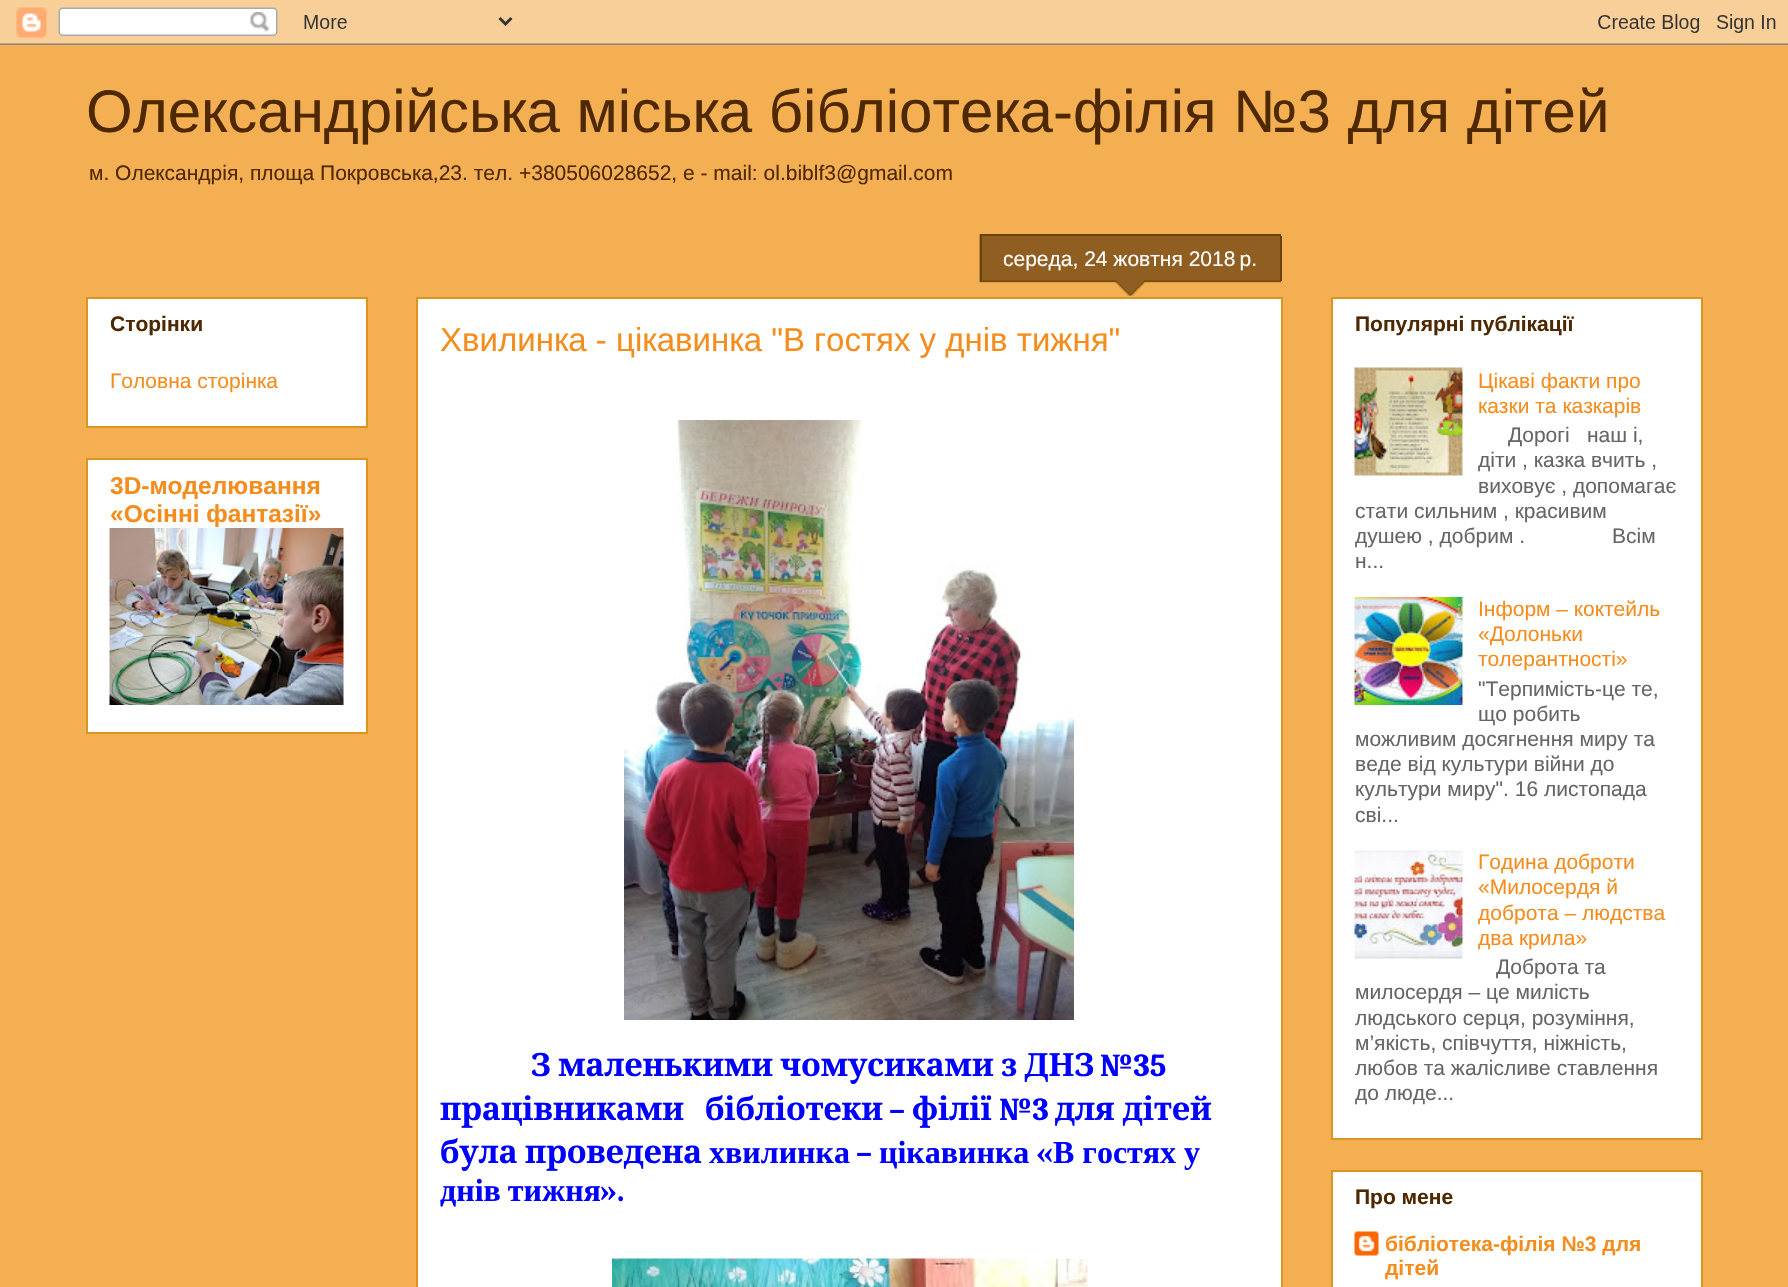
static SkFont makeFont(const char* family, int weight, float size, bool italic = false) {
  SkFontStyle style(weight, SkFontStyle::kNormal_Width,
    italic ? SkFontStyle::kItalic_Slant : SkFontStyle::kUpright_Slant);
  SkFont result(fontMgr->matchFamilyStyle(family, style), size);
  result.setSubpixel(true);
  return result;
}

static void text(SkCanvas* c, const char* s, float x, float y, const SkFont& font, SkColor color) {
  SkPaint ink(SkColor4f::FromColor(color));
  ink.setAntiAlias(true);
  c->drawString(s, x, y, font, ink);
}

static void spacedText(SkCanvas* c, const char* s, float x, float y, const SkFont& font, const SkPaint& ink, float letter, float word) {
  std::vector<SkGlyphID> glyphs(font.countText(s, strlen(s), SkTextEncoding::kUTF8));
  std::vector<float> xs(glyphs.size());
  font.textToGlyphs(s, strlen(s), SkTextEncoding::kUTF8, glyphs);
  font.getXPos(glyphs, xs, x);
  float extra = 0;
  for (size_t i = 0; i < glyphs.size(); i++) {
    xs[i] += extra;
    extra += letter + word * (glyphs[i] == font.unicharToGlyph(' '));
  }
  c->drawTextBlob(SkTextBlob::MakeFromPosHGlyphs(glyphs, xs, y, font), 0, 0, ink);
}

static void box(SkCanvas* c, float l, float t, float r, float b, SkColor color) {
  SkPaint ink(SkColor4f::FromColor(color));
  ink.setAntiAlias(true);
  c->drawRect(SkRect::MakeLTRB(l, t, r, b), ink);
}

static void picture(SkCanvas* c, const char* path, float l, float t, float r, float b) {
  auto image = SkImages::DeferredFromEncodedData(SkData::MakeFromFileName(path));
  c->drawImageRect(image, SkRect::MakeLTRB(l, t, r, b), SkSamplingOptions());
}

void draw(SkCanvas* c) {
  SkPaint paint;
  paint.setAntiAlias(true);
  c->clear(0xfff4af52);
  picture(c, "img_01.png", 0, 0, 1788, 45);
  SkFont face1 = makeFont("Liberation Sans", 400, 60);
  text(c, "Олександрійська міська бібліотека-філія №3 для дітей", 86, 132, face1, 0xff4e2800);
  SkFont face2 = makeFont("Liberation Sans", 400, 21);
  text(c, "м. Олександрія, площа Покровська,23. тел. +380506028652, e - mail: ol.biblf3@gmail.com", 89, 180, face2, 0xff4e2800);
  paint.setColor(0xffffffff);
  c->drawRect(SkRect::MakeLTRB(87, 298, 367, 427), paint);
  paint.setStyle(SkPaint::kStroke_Style);
  paint.setStrokeWidth(2);
  paint.setColor(0xffdc9522);
  c->drawRect(SkRect::MakeLTRB(87, 298, 367, 427), paint);
  SkFont face3 = makeFont("Liberation Sans", 700, 21);
  text(c, "Сторінки", 110, 331, face3, 0xff4e2800);
  text(c, "Головна сторінка", 110, 388, face2, 0xfff48d1d);
  paint.setStyle(SkPaint::kFill_Style);
  paint.setColor(0xffffffff);
  c->drawRect(SkRect::MakeLTRB(87, 459, 367, 733), paint);
  paint.setStyle(SkPaint::kStroke_Style);
  paint.setColor(0xffdc9522);
  c->drawRect(SkRect::MakeLTRB(87, 459, 367, 733), paint);
  SkFont face4 = makeFont("Liberation Sans", 700, 24.5f);
  text(c, "3D-моделювання", 110, 494, face4, 0xfff48d1d);
  text(c, "«Осінні фантазії»", 110, 522, face4, 0xfff48d1d);
  picture(c, "img_02.png", 109, 528, 344, 705);
  paint.setStyle(SkPaint::kFill_Style);
  paint.setColor(0xffffffff);
  c->drawRect(SkRect::MakeLTRB(417, 298, 1282, 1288), paint);
  paint.setStyle(SkPaint::kStroke_Style);
  paint.setColor(0xffdc9522);
  c->drawRect(SkRect::MakeLTRB(417, 298, 1282, 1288), paint);
  picture(c, "img_03.png", 979, 234, 1281, 296);
  box(c, 980, 234, 1281, 236, 0xff664400);
  box(c, 1280, 236, 1282, 281, 0xff664400);
  box(c, 980, 236, 982, 281, 0xff664400);
  text(c, "середа, 24 жовтня 2018 р.", 1003, 266, face2, 0xffffffff);
  SkFont face5 = makeFont("Liberation Sans", 400, 33);
  text(c, "Хвилинка - цікавинка \"В гостях у днів тижня\"", 440, 351, face5, 0xfff48d1d);
  picture(c, "img_04.png", 624, 420, 1074, 1020);
  SkFont face6 = makeFont("Noto Serif", 700, 32);
  paint.setStyle(SkPaint::kFill_Style);
  paint.setColor(0xff0000ff);
  spacedText(c, "З маленькими чомусиками з ДНЗ", 531, 1076, face6, paint, 0, -1);
  SkFont face7 = makeFont("Caladea", 700, 32);
  text(c, "№35", 1100, 1076, face7, 0xff0000ff);
  text(c, "працівниками", 440, 1120, face6, 0xff0000ff);
  text(c, "бібліотеки", 705, 1120, face6, 0xff0000ff);
  text(c, "–", 889, 1120, face7, 0xff0000ff);
  text(c, "філії", 912, 1120, face6, 0xff0000ff);
  text(c, "№3", 999, 1120, face7, 0xff0000ff);
  text(c, "для дітей", 1055, 1120, face6, 0xff0000ff);
  spacedText(c, "була проведена", 440, 1163, face6, paint, 0, -1);
  SkFont face8 = makeFont("Liberation Serif", 700, 32);
  text(c, "хвилинка", 709, 1163, face8, 0xff0000ff);
  text(c, "–", 856, 1163, face7, 0xff0000ff);
  text(c, "цікавинка", 879, 1163, face8, 0xff0000ff);
  text(c, "«", 1036, 1163, face7, 0xff0000ff);
  text(c, "В гостях у", 1053, 1163, face8, 0xff0000ff);
  spacedText(c, "днів тижня", 440, 1201, face8, paint, 0, -1);
  text(c, "».", 600, 1201, face7, 0xff0000ff);
  picture(c, "img_05.png", 612, 1258, 1088, 1287);
  paint.setColor(0xffffffff);
  c->drawRect(SkRect::MakeLTRB(1332, 298, 1702, 1139), paint);
  paint.setStyle(SkPaint::kStroke_Style);
  paint.setColor(0xffdc9522);
  c->drawRect(SkRect::MakeLTRB(1332, 298, 1702, 1139), paint);
  text(c, "Популярні публікації", 1355, 331, face3, 0xff4e2800);
  picture(c, "img_06.png", 1354, 367, 1463, 476);
  text(c, "Цікаві факти про", 1478, 388, face2, 0xfff48d1d);
  text(c, "казки та казкарів", 1478, 413, face2, 0xfff48d1d);
  text(c, "Дорогі", 1508, 442, face2, 0xff666666);
  text(c, "наш і,", 1587, 442, face2, 0xff666666);
  text(c, "діти , казка вчить ,", 1478, 467, face2, 0xff666666);
  text(c, "виховує , допомагає", 1478, 493, face2, 0xff666666);
  text(c, "стати сильним , красивим", 1355, 518, face2, 0xff666666);
  text(c, "душею , добрим .", 1355, 543, face2, 0xff666666);
  text(c, "Всім", 1612, 543, face2, 0xff666666);
  text(c, "н...", 1355, 568, face2, 0xff666666);
  picture(c, "img_07.png", 1354, 597, 1463, 705);
  text(c, "Інформ – коктейль", 1478, 616, face2, 0xfff48d1d);
  text(c, "«Долоньки", 1478, 641, face2, 0xfff48d1d);
  text(c, "толерантності»", 1478, 666, face2, 0xfff48d1d);
  text(c, "\"Терпимість-це те,", 1478, 696, face2, 0xff666666);
  text(c, "що робить", 1478, 721, face2, 0xff666666);
  text(c, "можливим досягнення миру та", 1355, 746, face2, 0xff666666);
  text(c, "веде від культури війни до", 1355, 771, face2, 0xff666666);
  text(c, "культури миру\". 16 листопада", 1355, 796, face2, 0xff666666);
  text(c, "сві...", 1355, 822, face2, 0xff666666);
  picture(c, "img_08.png", 1354, 850, 1463, 959);
  text(c, "Година доброти", 1478, 869, face2, 0xfff48d1d);
  text(c, "«Милосердя й", 1478, 894, face2, 0xfff48d1d);
  text(c, "доброта – людства", 1478, 920, face2, 0xfff48d1d);
  text(c, "два крила»", 1478, 945, face2, 0xfff48d1d);
  text(c, "Доброта та", 1496, 974, face2, 0xff666666);
  text(c, "милосердя – це милість", 1355, 999, face2, 0xff666666);
  text(c, "людського серця, розуміння,", 1355, 1025, face2, 0xff666666);
  text(c, "м’якість, співчуття, ніжність,", 1355, 1050, face2, 0xff666666);
  text(c, "любов та жалісливе ставлення", 1355, 1075, face2, 0xff666666);
  text(c, "до люде...", 1355, 1100, face2, 0xff666666);
  paint.setStyle(SkPaint::kFill_Style);
  paint.setColor(0xffffffff);
  c->drawRect(SkRect::MakeLTRB(1332, 1171, 1702, 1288), paint);
  paint.setStyle(SkPaint::kStroke_Style);
  paint.setColor(0xffdc9522);
  c->drawRect(SkRect::MakeLTRB(1332, 1171, 1702, 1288), paint);
  text(c, "Про мене", 1355, 1204, face3, 0xff4e2800);
  picture(c, "img_09.png", 1354, 1231, 1379, 1256);
  text(c, "бібліотека-філія №3 для", 1385, 1251, face3, 0xfff48d1d);
  text(c, "дітей", 1385, 1275, face3, 0xfff48d1d);
}
